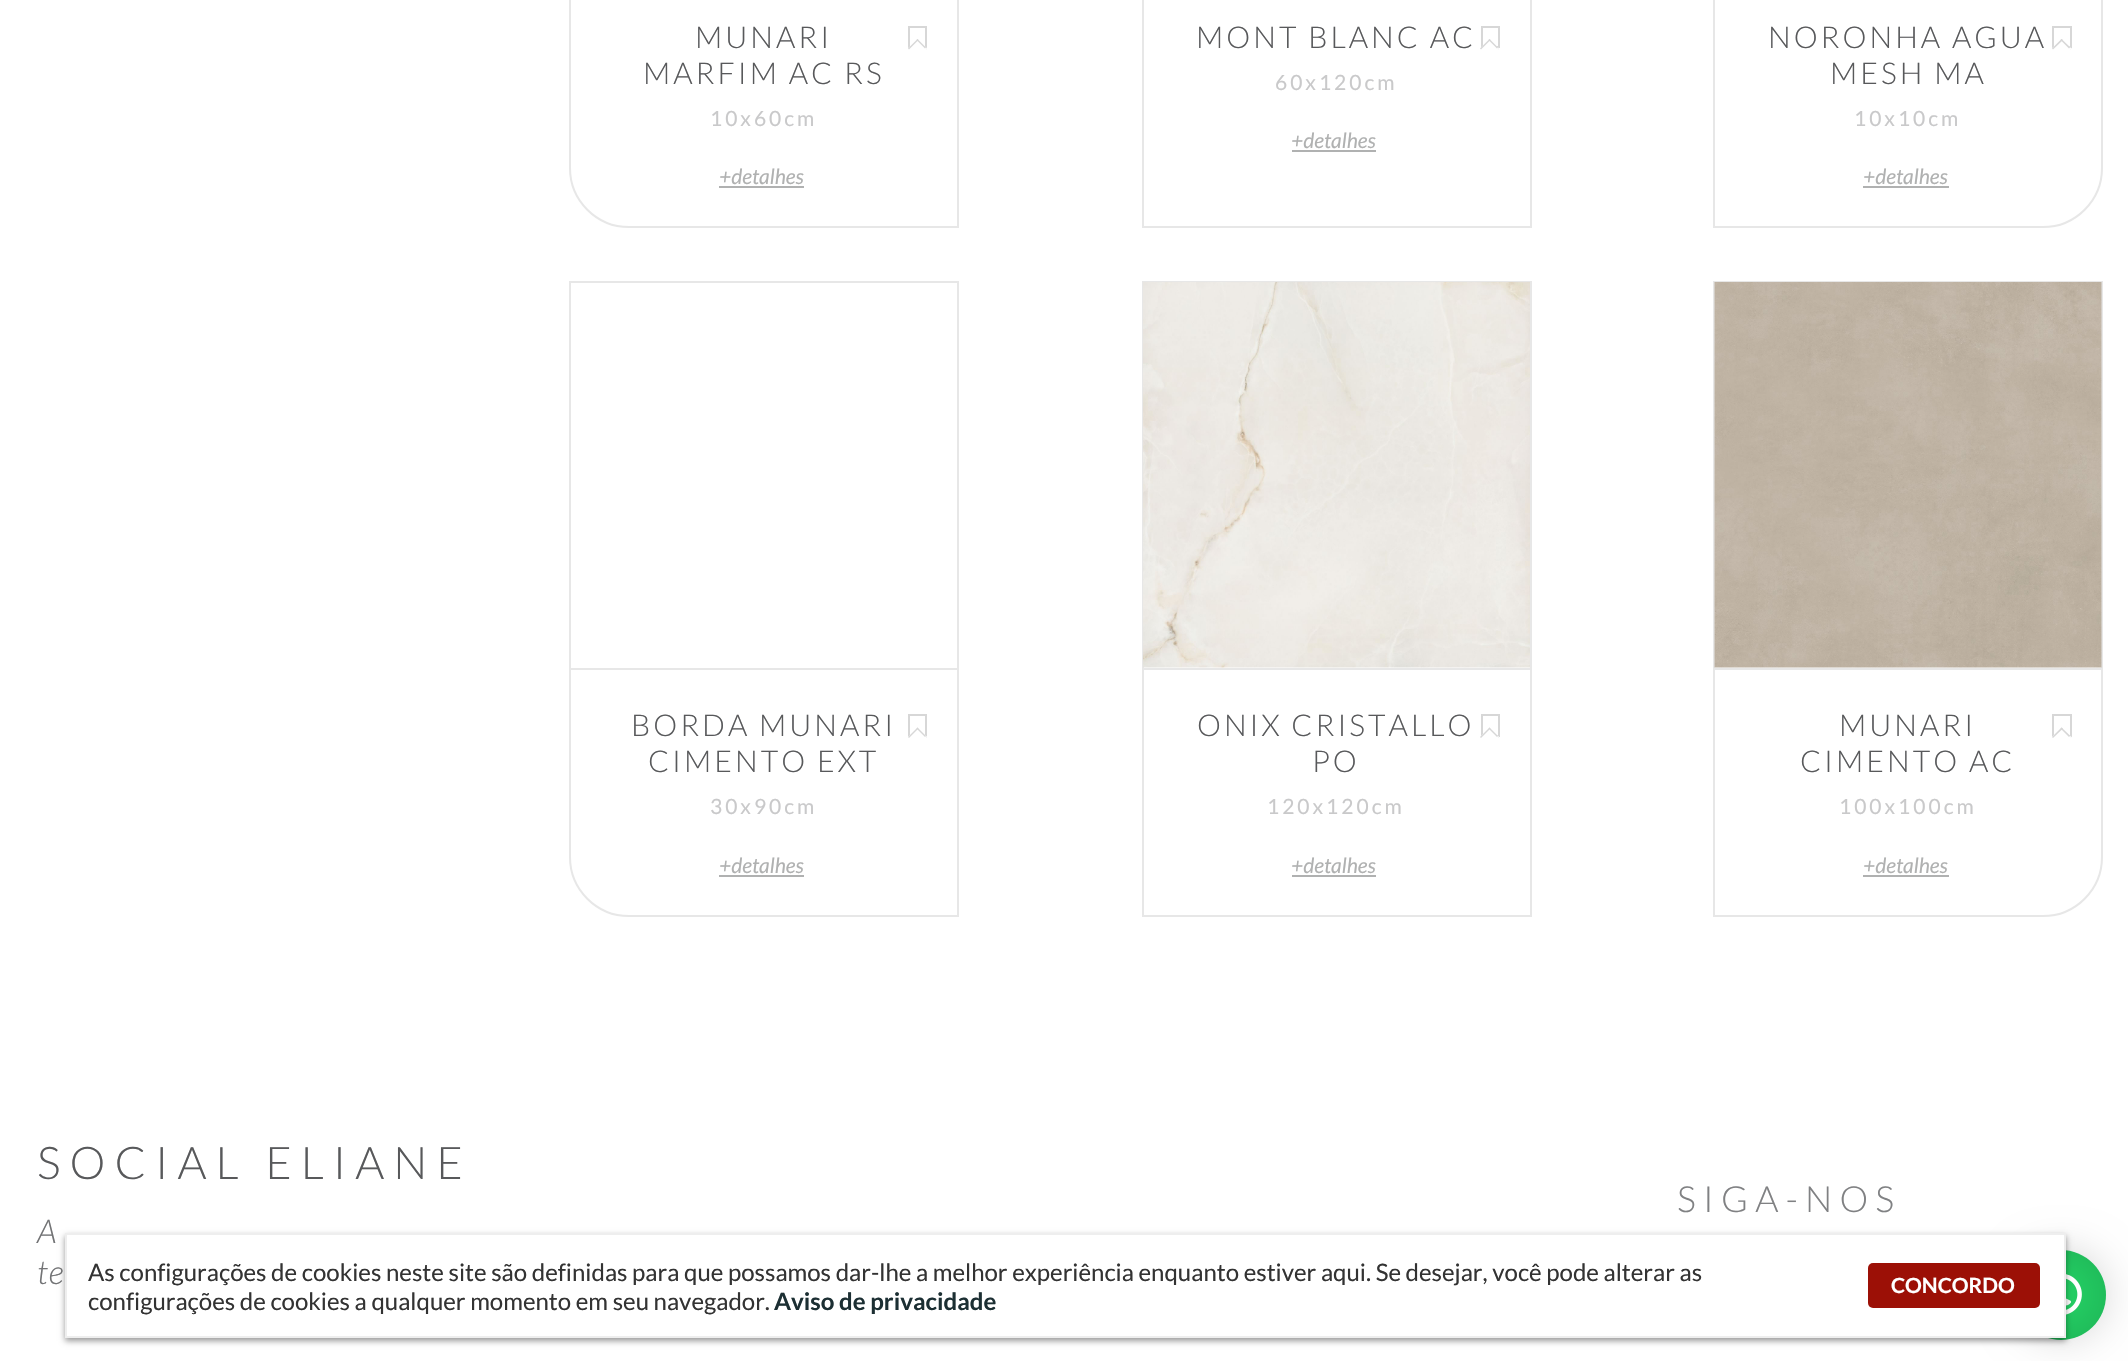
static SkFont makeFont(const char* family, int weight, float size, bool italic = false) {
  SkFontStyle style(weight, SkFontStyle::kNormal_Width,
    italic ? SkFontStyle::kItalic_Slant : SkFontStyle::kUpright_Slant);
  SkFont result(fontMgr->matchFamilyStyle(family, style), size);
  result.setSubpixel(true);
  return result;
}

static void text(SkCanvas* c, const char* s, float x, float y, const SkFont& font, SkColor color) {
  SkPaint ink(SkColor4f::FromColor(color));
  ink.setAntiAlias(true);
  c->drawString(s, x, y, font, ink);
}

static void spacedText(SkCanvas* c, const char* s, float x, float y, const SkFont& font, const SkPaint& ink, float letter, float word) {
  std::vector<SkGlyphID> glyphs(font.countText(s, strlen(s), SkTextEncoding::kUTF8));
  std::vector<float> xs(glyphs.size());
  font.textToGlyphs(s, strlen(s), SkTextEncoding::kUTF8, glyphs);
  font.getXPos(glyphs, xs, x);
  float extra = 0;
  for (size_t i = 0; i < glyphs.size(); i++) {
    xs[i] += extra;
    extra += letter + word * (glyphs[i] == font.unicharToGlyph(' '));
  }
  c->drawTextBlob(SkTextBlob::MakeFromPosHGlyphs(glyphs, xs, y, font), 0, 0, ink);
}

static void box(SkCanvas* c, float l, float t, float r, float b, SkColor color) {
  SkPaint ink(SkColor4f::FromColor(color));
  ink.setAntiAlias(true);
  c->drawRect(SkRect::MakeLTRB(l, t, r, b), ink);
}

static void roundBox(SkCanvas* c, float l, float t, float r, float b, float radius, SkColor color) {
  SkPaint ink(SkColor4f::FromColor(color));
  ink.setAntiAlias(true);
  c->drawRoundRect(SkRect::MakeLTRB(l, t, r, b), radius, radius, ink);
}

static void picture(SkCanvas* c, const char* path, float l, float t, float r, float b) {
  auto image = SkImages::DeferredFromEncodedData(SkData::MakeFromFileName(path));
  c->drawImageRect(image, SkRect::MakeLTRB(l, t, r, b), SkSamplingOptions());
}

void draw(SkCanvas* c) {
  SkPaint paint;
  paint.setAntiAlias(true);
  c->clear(0xffffffff);
  paint.setStyle(SkPaint::kStroke_Style);
  paint.setStrokeWidth(2);
  paint.setColor(0xffe7e7e7);
  c->drawPath(SkPathBuilder().moveTo(570, -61).lineTo(958, -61).lineTo(958, 227).lineTo(629, 227).cubicTo(596.5f, 227, 570, 200.5f, 570, 168).close().detach(), paint);
  SkFont face1 = makeFont("Lato", 300, 30);
  paint.setStyle(SkPaint::kFill_Style);
  paint.setColor(0xff58595b);
  spacedText(c, "MUNARI", 695, 48, face1, paint, 3, 0);
  spacedText(c, "MARFIM AC RS", 643, 84, face1, paint, 3, 0);
  SkFont face2 = makeFont("Lato", 400, 21);
  paint.setColor(0xffc9c9ca);
  spacedText(c, "10x60cm", 710, 126, face2, paint, 3, 0);
  paint.setStyle(SkPaint::kStroke_Style);
  paint.setColor(0xffd7d7d7);
  c->drawRect(SkRect::MakeLTRB(909, 27, 926, 47), paint);
  paint.setStyle(SkPaint::kFill_Style);
  paint.setColor(0xffffffff);
  c->drawPath(SkPathBuilder().moveTo(917.5f, 39).lineTo(927, 48.5f).lineTo(917.5f, 58).lineTo(908, 48.5f).close().detach(), paint);
  paint.setColor(0xffd7d7d7);
  c->drawPath(SkPathBuilder().moveTo(917.5f, 39).lineTo(927, 48.5f).lineTo(926, 49.5f).lineTo(916.5f, 40).close().detach(), paint);
  paint.setColor(0xffffffff);
  c->drawPath(SkPathBuilder().moveTo(926, 47.5f).lineTo(927, 48.5f).lineTo(917.5f, 58).lineTo(916.5f, 57).close().detach(), paint);
  c->drawPath(SkPathBuilder().moveTo(909, 47.5f).lineTo(918.5f, 57).lineTo(917.5f, 58).lineTo(908, 48.5f).close().detach(), paint);
  paint.setColor(0xffd7d7d7);
  c->drawPath(SkPathBuilder().moveTo(917.5f, 39).lineTo(918.5f, 40).lineTo(909, 49.5f).lineTo(908, 48.5f).close().detach(), paint);
  SkFont face3 = makeFont("Lato", 400, 21, true);
  text(c, "+detalhes", 719, 184, face3, 0xffb0b1b1);
  box(c, 719, 186, 804, 188, 0xffb0b1b1);
  paint.setStyle(SkPaint::kStroke_Style);
  paint.setColor(0xffe7e7e7);
  c->drawRect(SkRect::MakeLTRB(1143, -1, 1531, 227), paint);
  paint.setStyle(SkPaint::kFill_Style);
  paint.setColor(0xff58595b);
  spacedText(c, "MONT BLANC AC", 1196, 48, face1, paint, 3, 0);
  paint.setColor(0xffc9c9ca);
  spacedText(c, "60x120cm", 1275, 90, face2, paint, 3, 0);
  paint.setStyle(SkPaint::kStroke_Style);
  paint.setColor(0xffd7d7d7);
  c->drawRect(SkRect::MakeLTRB(1482, 27, 1499, 47), paint);
  paint.setStyle(SkPaint::kFill_Style);
  paint.setColor(0xffffffff);
  c->drawPath(SkPathBuilder().moveTo(1489.5f, 39).lineTo(1499, 48.5f).lineTo(1489.5f, 58).lineTo(1480, 48.5f).close().detach(), paint);
  paint.setColor(0xffd7d7d7);
  c->drawPath(SkPathBuilder().moveTo(1489.5f, 39).lineTo(1499, 48.5f).lineTo(1498, 49.5f).lineTo(1488.5f, 40).close().detach(), paint);
  paint.setColor(0xffffffff);
  c->drawPath(SkPathBuilder().moveTo(1498, 47.5f).lineTo(1499, 48.5f).lineTo(1489.5f, 58).lineTo(1488.5f, 57).close().detach(), paint);
  paint.setColor(0xffd7d7d7);
  c->drawPath(SkPathBuilder().moveTo(1489.5f, 39).lineTo(1490.5f, 40).lineTo(1481, 49.5f).lineTo(1480, 48.5f).close().detach(), paint);
  text(c, "+detalhes", 1291, 148, face3, 0xffb0b1b1);
  box(c, 1292, 150, 1376, 152, 0xffb0b1b1);
  paint.setStyle(SkPaint::kStroke_Style);
  paint.setColor(0xffe7e7e7);
  c->drawPath(SkPathBuilder().moveTo(1714, -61).lineTo(2102, -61).lineTo(2102, 168).cubicTo(2102, 200.5f, 2075.5f, 227, 2043, 227).lineTo(1714, 227).close().detach(), paint);
  paint.setStyle(SkPaint::kFill_Style);
  paint.setColor(0xff58595b);
  spacedText(c, "NORONHA AGUA", 1768, 48, face1, paint, 3, 0);
  spacedText(c, "MESH MA", 1830, 84, face1, paint, 3, 0);
  paint.setColor(0xffc9c9ca);
  spacedText(c, "10x10cm", 1854, 126, face2, paint, 3, 0);
  paint.setStyle(SkPaint::kStroke_Style);
  paint.setColor(0xffd7d7d7);
  c->drawRect(SkRect::MakeLTRB(2053, 27, 2071, 47), paint);
  paint.setStyle(SkPaint::kFill_Style);
  paint.setColor(0xffffffff);
  c->drawPath(SkPathBuilder().moveTo(2061.5f, 39).lineTo(2071.5f, 48.5f).lineTo(2061.5f, 58).lineTo(2052, 48.5f).close().detach(), paint);
  paint.setColor(0xffd7d7d7);
  c->drawPath(SkPathBuilder().moveTo(2061.5f, 39).lineTo(2071.5f, 48.5f).lineTo(2070, 49.5f).lineTo(2060.5f, 40).close().detach(), paint);
  paint.setColor(0xffffffff);
  c->drawPath(SkPathBuilder().moveTo(2070, 47.5f).lineTo(2071.5f, 48.5f).lineTo(2061.5f, 58).lineTo(2060.5f, 57).close().detach(), paint);
  c->drawPath(SkPathBuilder().moveTo(2053, 47.5f).lineTo(2063, 57).lineTo(2061.5f, 58).lineTo(2052, 48.5f).close().detach(), paint);
  paint.setColor(0xffd7d7d7);
  c->drawPath(SkPathBuilder().moveTo(2061.5f, 39).lineTo(2063, 40).lineTo(2053, 49.5f).lineTo(2052, 48.5f).close().detach(), paint);
  text(c, "+detalhes", 1863, 184, face3, 0xffb0b1b1);
  box(c, 1863, 186, 1949, 188, 0xffb0b1b1);
  paint.setStyle(SkPaint::kStroke_Style);
  paint.setColor(0xffe7e7e7);
  c->drawPath(SkPathBuilder().moveTo(570, 282).lineTo(958, 282).lineTo(958, 916).lineTo(629, 916).cubicTo(596.5f, 916, 570, 889.5f, 570, 857).close().detach(), paint);
  box(c, 570, 668, 957, 670, 0xffe7e7e7);
  paint.setStyle(SkPaint::kFill_Style);
  paint.setColor(0xff58595b);
  spacedText(c, "BORDA MUNARI", 631, 736, face1, paint, 3, 0);
  spacedText(c, "CIMENTO EXT", 648, 772, face1, paint, 3, 0);
  paint.setColor(0xffc9c9ca);
  spacedText(c, "30x90cm", 710, 814, face2, paint, 3, 0);
  paint.setStyle(SkPaint::kStroke_Style);
  paint.setColor(0xffd7d7d7);
  c->drawRect(SkRect::MakeLTRB(909, 715, 926, 736), paint);
  paint.setStyle(SkPaint::kFill_Style);
  paint.setColor(0xffffffff);
  c->drawPath(SkPathBuilder().moveTo(917.5f, 727.5f).lineTo(927, 737).lineTo(917.5f, 746.5f).lineTo(908, 737).close().detach(), paint);
  paint.setColor(0xffd7d7d7);
  c->drawPath(SkPathBuilder().moveTo(917.5f, 727.5f).lineTo(927, 737).lineTo(926, 738).lineTo(916.5f, 728.5f).close().detach(), paint);
  paint.setColor(0xffffffff);
  c->drawPath(SkPathBuilder().moveTo(926, 736).lineTo(927, 737).lineTo(917.5f, 746.5f).lineTo(916.5f, 745.5f).close().detach(), paint);
  c->drawPath(SkPathBuilder().moveTo(909, 736).lineTo(918.5f, 745.5f).lineTo(917.5f, 746.5f).lineTo(908, 737).close().detach(), paint);
  paint.setColor(0xffd7d7d7);
  c->drawPath(SkPathBuilder().moveTo(917.5f, 727.5f).lineTo(918.5f, 728.5f).lineTo(909, 738).lineTo(908, 737).close().detach(), paint);
  text(c, "+detalhes", 719, 873, face3, 0xffb0b1b1);
  box(c, 719, 875, 804, 877, 0xffb0b1b1);
  paint.setStyle(SkPaint::kStroke_Style);
  paint.setColor(0xffe7e7e7);
  c->drawRect(SkRect::MakeLTRB(1143, 282, 1531, 916), paint);
  box(c, 1143, 668, 1530, 670, 0xffe7e7e7);
  picture(c, "img_01.png", 1143, 282, 1530, 668);
  paint.setStyle(SkPaint::kFill_Style);
  paint.setColor(0xff58595b);
  spacedText(c, "ONIX CRISTALLO", 1197, 736, face1, paint, 3, 0);
  spacedText(c, "PO", 1312, 772, face1, paint, 3, 0);
  paint.setColor(0xffc9c9ca);
  spacedText(c, "120x120cm", 1267, 814, face2, paint, 3, 0);
  paint.setStyle(SkPaint::kStroke_Style);
  paint.setColor(0xffd7d7d7);
  c->drawRect(SkRect::MakeLTRB(1482, 715, 1499, 736), paint);
  paint.setStyle(SkPaint::kFill_Style);
  paint.setColor(0xffffffff);
  c->drawPath(SkPathBuilder().moveTo(1489.5f, 727.5f).lineTo(1499, 737).lineTo(1489.5f, 746.5f).lineTo(1480, 737).close().detach(), paint);
  paint.setColor(0xffd7d7d7);
  c->drawPath(SkPathBuilder().moveTo(1489.5f, 727.5f).lineTo(1499, 737).lineTo(1498, 738).lineTo(1488.5f, 728.5f).close().detach(), paint);
  paint.setColor(0xffffffff);
  c->drawPath(SkPathBuilder().moveTo(1498, 736).lineTo(1499, 737).lineTo(1489.5f, 746.5f).lineTo(1488.5f, 745.5f).close().detach(), paint);
  paint.setColor(0xffd7d7d7);
  c->drawPath(SkPathBuilder().moveTo(1489.5f, 727.5f).lineTo(1490.5f, 728.5f).lineTo(1481, 738).lineTo(1480, 737).close().detach(), paint);
  text(c, "+detalhes", 1291, 873, face3, 0xffb0b1b1);
  box(c, 1292, 875, 1376, 877, 0xffb0b1b1);
  paint.setStyle(SkPaint::kStroke_Style);
  paint.setColor(0xffe7e7e7);
  c->drawPath(SkPathBuilder().moveTo(1714, 282).lineTo(2102, 282).lineTo(2102, 857).cubicTo(2102, 889.5f, 2075.5f, 916, 2043, 916).lineTo(1714, 916).close().detach(), paint);
  box(c, 1715, 668, 2102, 670, 0xffe7e7e7);
  picture(c, "img_02.png", 1714, 282, 2102, 668);
  paint.setStyle(SkPaint::kFill_Style);
  paint.setColor(0xff58595b);
  spacedText(c, "MUNARI", 1839, 736, face1, paint, 3, 0);
  spacedText(c, "CIMENTO AC", 1800, 772, face1, paint, 3, 0);
  paint.setColor(0xffc9c9ca);
  spacedText(c, "100x100cm", 1839, 814, face2, paint, 3, 0);
  paint.setStyle(SkPaint::kStroke_Style);
  paint.setColor(0xffd7d7d7);
  c->drawRect(SkRect::MakeLTRB(2053, 715, 2071, 736), paint);
  paint.setStyle(SkPaint::kFill_Style);
  paint.setColor(0xffffffff);
  c->drawPath(SkPathBuilder().moveTo(2061.5f, 727.5f).lineTo(2071.5f, 737).lineTo(2061.5f, 746.5f).lineTo(2052, 737).close().detach(), paint);
  paint.setColor(0xffd7d7d7);
  c->drawPath(SkPathBuilder().moveTo(2061.5f, 727.5f).lineTo(2071.5f, 737).lineTo(2070, 738).lineTo(2060.5f, 728.5f).close().detach(), paint);
  paint.setColor(0xffffffff);
  c->drawPath(SkPathBuilder().moveTo(2070, 736).lineTo(2071.5f, 737).lineTo(2061.5f, 746.5f).lineTo(2060.5f, 745.5f).close().detach(), paint);
  c->drawPath(SkPathBuilder().moveTo(2053, 736).lineTo(2063, 745.5f).lineTo(2061.5f, 746.5f).lineTo(2052, 737).close().detach(), paint);
  paint.setColor(0xffd7d7d7);
  c->drawPath(SkPathBuilder().moveTo(2061.5f, 727.5f).lineTo(2063, 728.5f).lineTo(2053, 738).lineTo(2052, 737).close().detach(), paint);
  text(c, "+detalhes", 1863, 873, face3, 0xffb0b1b1);
  box(c, 1863, 875, 1949, 877, 0xffb0b1b1);
  SkFont face4 = makeFont("Lato", 300, 45);
  paint.setColor(0xff58595b);
  spacedText(c, "SOCIAL ELIANE", 37, 1179, face4, paint, 9, 0);
  SkFont face5 = makeFont("Lato", 300, 33, true);
  paint.setColor(0xff727375);
  spacedText(c, "A", 37, 1243, face5, paint, 1, 0);
  spacedText(c, "te", 37, 1284, face5, paint, 1, 0);
  SkFont face6 = makeFont("Lato", 300, 36);
  paint.setColor(0xff808183);
  spacedText(c, "SIGA-NOS", 1677, 1212, face6, paint, 7.25f, 0);
  paint.setColor(0x33000000);
  paint.setMaskFilter(SkMaskFilter::MakeBlur(kNormal_SkBlurStyle, 22));
  c->drawRoundRect(SkRect::MakeLTRB(2021, 1254, 2102, 1335), 40.5f, 40.5f, paint);
  paint.setMaskFilter(nullptr);
  {
    const SkColor colors[] = {0xff25d366, 0xff1eb456};
    const float stops[] = {0, 1};
    paint.setShader(SkGradientShader::MakeRadial({2061, 1295}, 64, colors, stops, 2, SkTileMode::kClamp));
    paint.setAlpha(255);
  }
  c->drawCircle(2061, 1295, 45, paint);
  picture(c, "img_03.png", 2066, 1274, 2082, 1315);
  paint.setShader(nullptr);
  paint.setColor(0x66000000);
  paint.setMaskFilter(SkMaskFilter::MakeBlur(kNormal_SkBlurStyle, 3));
  c->drawRect(SkRect::MakeLTRB(65, 1236, 2066, 1341), paint);
  paint.setMaskFilter(nullptr);
  paint.setColor(0xffffffff);
  c->drawRect(SkRect::MakeLTRB(66, 1234, 2065, 1337), paint);
  paint.setStyle(SkPaint::kStroke_Style);
  paint.setColor(0xffeeeeee);
  c->drawRect(SkRect::MakeLTRB(66, 1234, 2065, 1337), paint);
  SkFont face7 = makeFont("Lato", 400, 24);
  text(c, "As configurações de cookies neste site são definidas para que possamos dar-lhe a melhor experiência enquanto estiver aqui. Se desejar, você pode alterar as", 88, 1281, face7, 0xff333333);
  text(c, "configurações de cookies a qualquer momento em seu navegador.", 88, 1310, face7, 0xff333333);
  SkFont face8 = makeFont("Lato", 700, 24);
  text(c, "Aviso de privacidade", 774, 1310, face8, 0xff1c2f33);
  roundBox(c, 1868, 1263, 2040, 1308, 5, 0xff9c1006);
  SkFont face9 = makeFont("Lato", 700, 21);
  text(c, "CONCORDO", 1891, 1293, face9, 0xffffffff);
}
